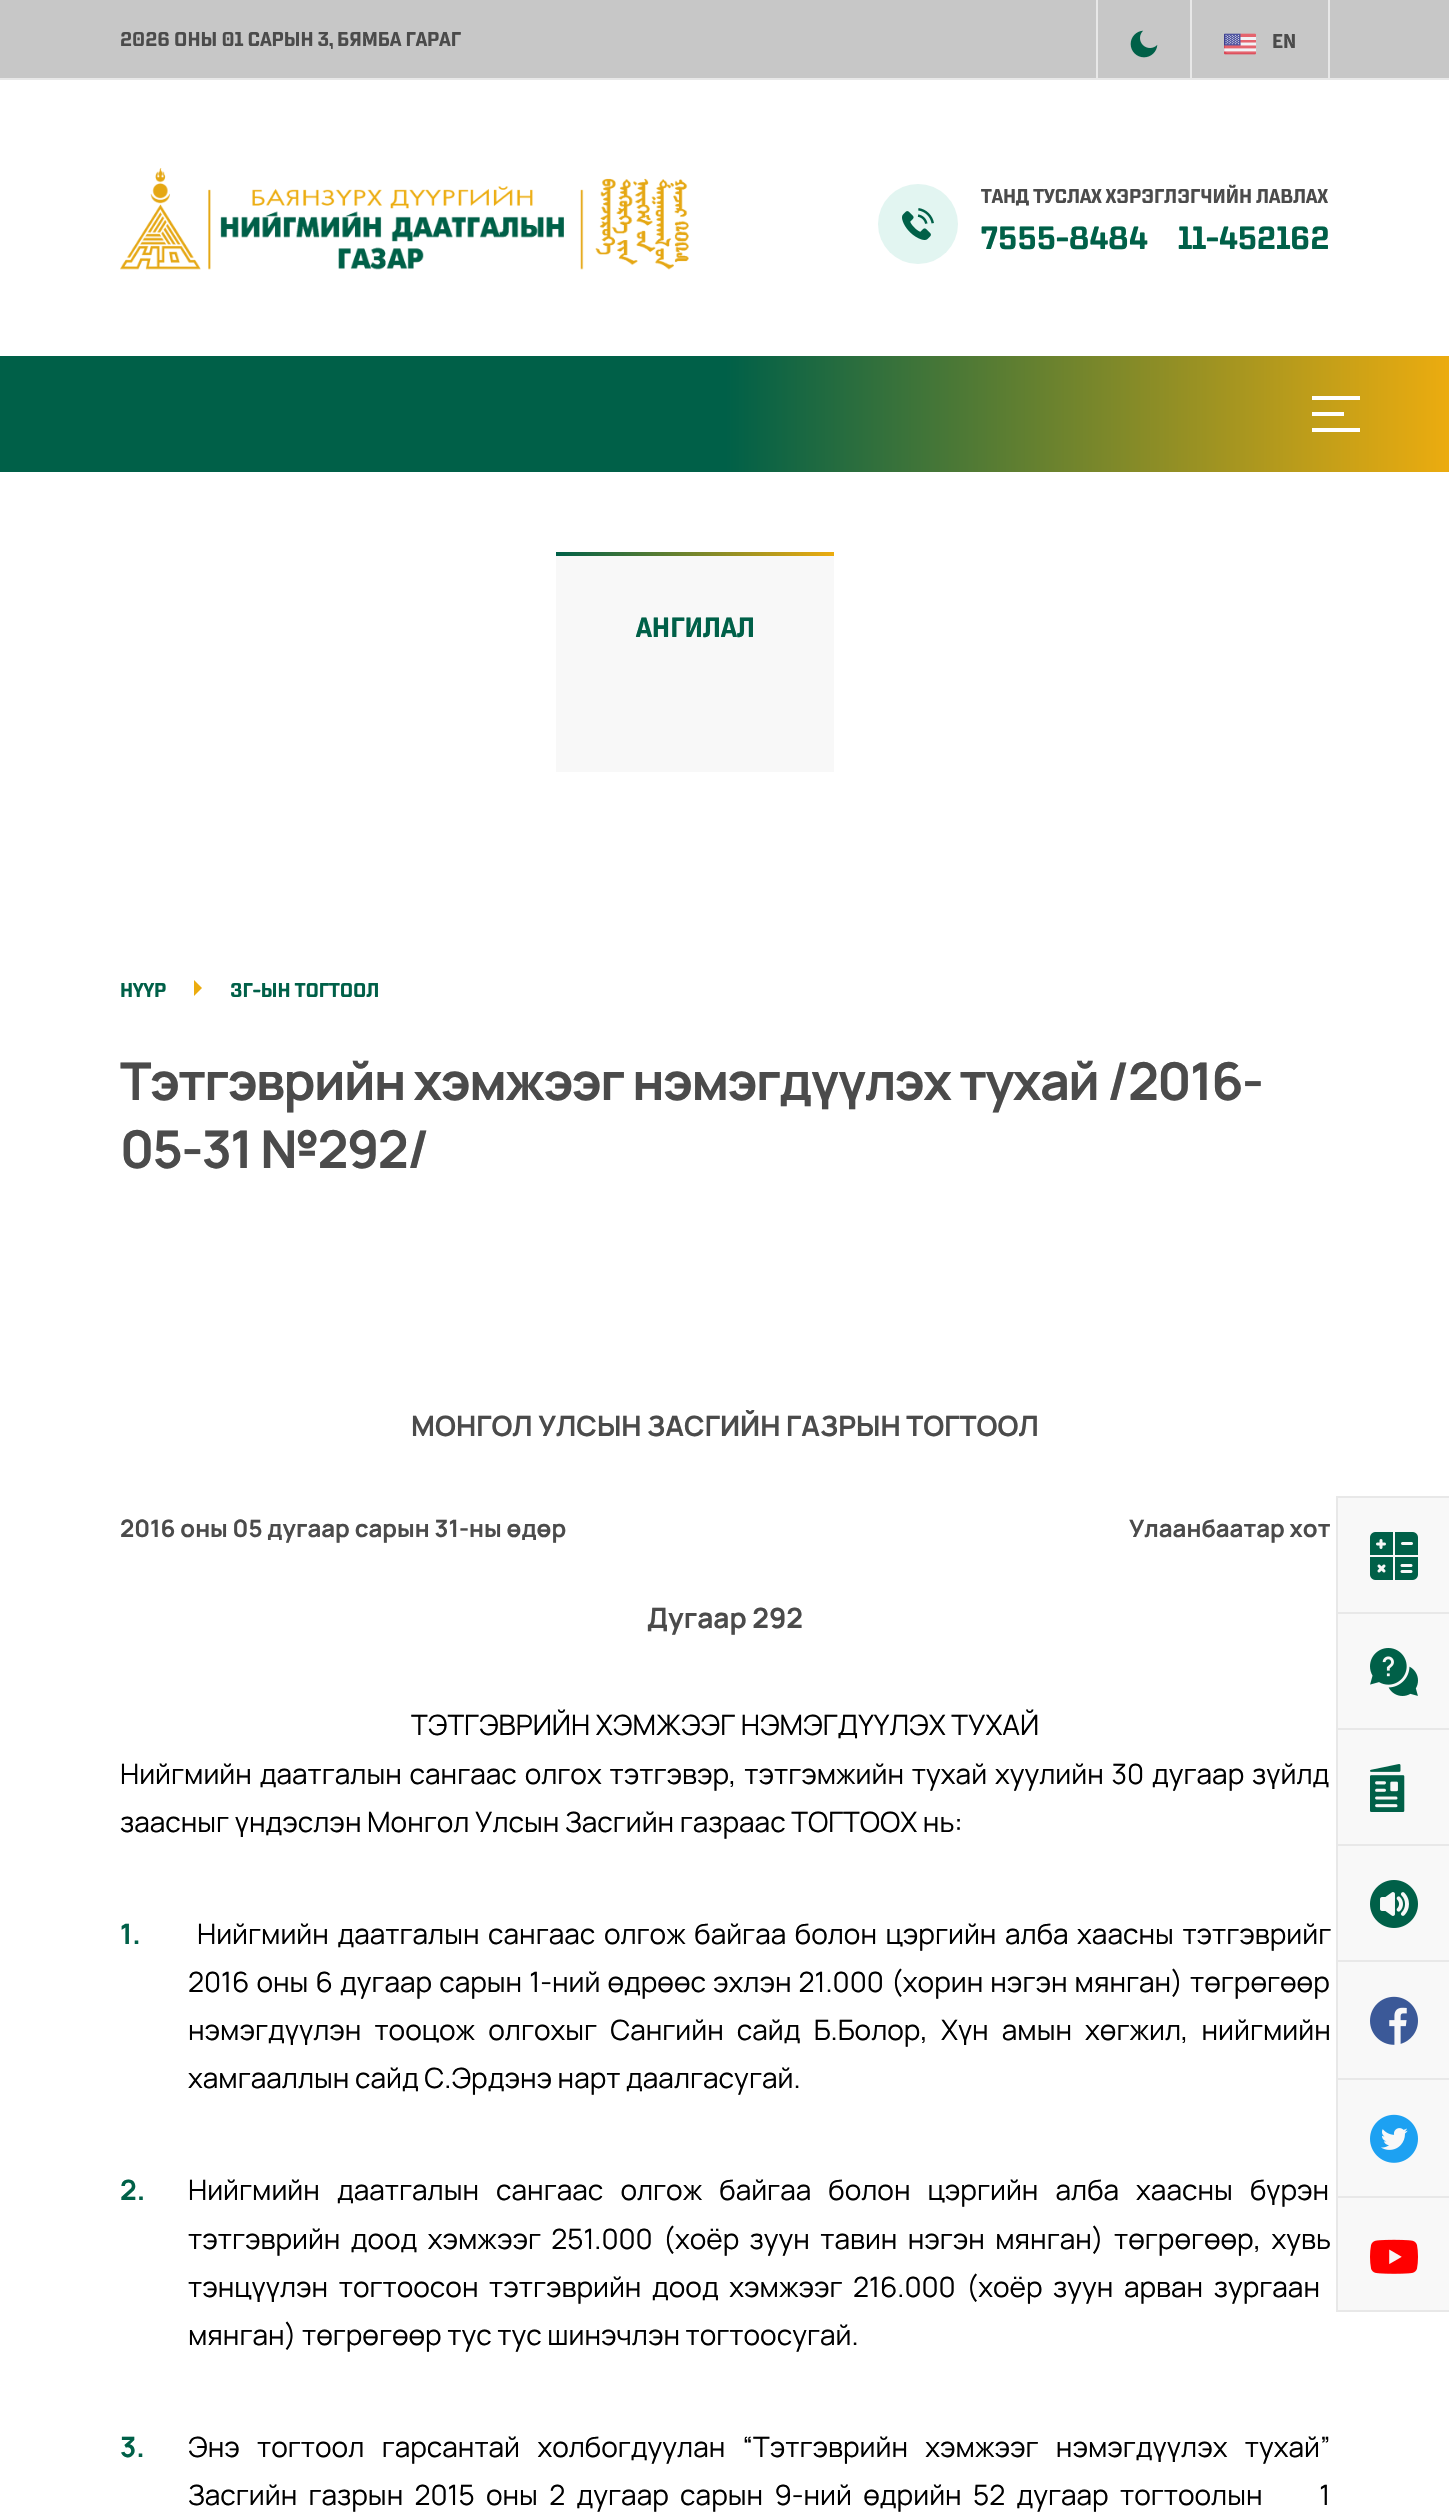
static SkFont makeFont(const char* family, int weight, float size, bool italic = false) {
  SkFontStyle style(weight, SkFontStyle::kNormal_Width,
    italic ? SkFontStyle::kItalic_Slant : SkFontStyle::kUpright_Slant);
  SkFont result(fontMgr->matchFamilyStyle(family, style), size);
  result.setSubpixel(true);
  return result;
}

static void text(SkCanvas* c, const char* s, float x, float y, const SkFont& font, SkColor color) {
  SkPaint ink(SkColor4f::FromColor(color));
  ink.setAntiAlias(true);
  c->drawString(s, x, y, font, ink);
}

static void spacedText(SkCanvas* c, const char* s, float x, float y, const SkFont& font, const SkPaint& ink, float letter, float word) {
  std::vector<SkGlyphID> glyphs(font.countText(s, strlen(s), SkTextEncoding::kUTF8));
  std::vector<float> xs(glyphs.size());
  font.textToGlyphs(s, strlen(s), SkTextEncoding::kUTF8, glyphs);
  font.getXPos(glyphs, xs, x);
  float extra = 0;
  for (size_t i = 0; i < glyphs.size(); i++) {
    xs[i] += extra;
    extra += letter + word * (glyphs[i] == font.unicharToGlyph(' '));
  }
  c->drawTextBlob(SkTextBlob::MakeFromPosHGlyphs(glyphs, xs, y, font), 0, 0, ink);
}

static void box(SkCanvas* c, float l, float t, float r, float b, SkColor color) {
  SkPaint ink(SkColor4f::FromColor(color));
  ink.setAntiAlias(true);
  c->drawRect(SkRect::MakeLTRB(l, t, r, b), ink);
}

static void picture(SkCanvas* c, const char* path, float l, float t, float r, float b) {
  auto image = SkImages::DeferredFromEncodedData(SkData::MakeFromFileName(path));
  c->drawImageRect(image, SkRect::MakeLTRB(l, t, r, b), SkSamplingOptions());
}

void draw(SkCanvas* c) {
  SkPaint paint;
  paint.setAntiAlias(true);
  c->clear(0xffffffff);
  box(c, 0, 0, 1449, 78, 0xffc7c7c7);
  box(c, 0, 78, 1449, 80, 0xffe8e8e8);
  SkFont face1 = makeFont("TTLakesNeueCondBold", 700, 20);
  text(c, "2026 ОНЫ 01 САРЫН 3, БЯМБА ГАРАГ", 120, 46, face1, 0xff4b4b4b);
  box(c, 1096, 0, 1098, 78, 0xffe8e8e8);
  picture(c, "img_01.png", 1130, 30, 1158, 58);
  box(c, 1328, 0, 1330, 78, 0xffe8e8e8);
  box(c, 1190, 0, 1192, 78, 0xffe8e8e8);
  picture(c, "img_02.png", 1224, 33, 1256, 55);
  text(c, "EN", 1272, 48, face1, 0xff4b4b4b);
  picture(c, "img_03.png", 120, 168, 689, 270);
  paint.setColor(0xffe2f5f1);
  c->drawCircle(918, 224, 40, paint);
  picture(c, "img_04.png", 902, 208, 934, 240);
  text(c, "ТАНД ТУСЛАХ ХЭРЭГЛЭГЧИЙН ЛАВЛАХ", 981, 203, face1, 0xff4b4b4b);
  SkFont face2 = makeFont("TTLakesNeueCondBold", 700, 32);
  text(c, "7555-8484", 981, 249, face2, 0xff006048);
  text(c, "11-452162", 1178, 249, face2, 0xff006048);
  {
    const SkColor colors[] = {0xff006048, 0xffecac0f};
    const float stops[] = {0.5f, 1};
    const SkPoint ends[] = {{0, 414}, {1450, 414}};
    paint.setShader(SkGradientShader::MakeLinear(ends, colors, stops, 2, SkTileMode::kClamp));
    paint.setAlpha(255);
  }
  c->drawRect(SkRect::MakeLTRB(0, 356, 1449, 472), paint);
  box(c, 1312, 396, 1360, 400, 0xffffffff);
  box(c, 1312, 412, 1344, 416, 0xffffffff);
  box(c, 1312, 428, 1360, 432, 0xffffffff);
  box(c, 556, 556, 834, 772, 0xfff8f8f8);
  {
    const SkColor colors[] = {0xff006048, 0xffecac0f};
    const float stops[] = {0, 1};
    const SkPoint ends[] = {{556, 554}, {834, 554}};
    paint.setShader(SkGradientShader::MakeLinear(ends, colors, stops, 2, SkTileMode::kClamp));
    paint.setAlpha(255);
  }
  c->drawRect(SkRect::MakeLTRB(556, 552, 834, 556), paint);
  SkFont face3 = makeFont("TTLakesNeueCondBold", 700, 28);
  text(c, "АНГИЛАЛ", 636, 637, face3, 0xff006048);
  text(c, "НҮҮР", 120, 997, face1, 0xff006048);
  paint.setShader(nullptr);
  paint.setColor(0xffecac0f);
  c->drawPath(SkPathBuilder().moveTo(194, 996).lineTo(202, 988).lineTo(194, 980).close().detach(), paint);
  text(c, "ЗГ-ЫН ТОГТООЛ", 230, 997, face1, 0xff006048);
  SkFont face4 = makeFont("Manrope", 700, 52);
  paint.setColor(0xff4b4b4b);
  spacedText(c, "Тэтгэврийн хэмжээг нэмэгдүүлэх тухай /2016-", 120, 1100, face4, paint, -1.6f, 0);
  spacedText(c, "05-31 №292/", 120, 1168, face4, paint, -1.6f, 0);
  SkFont face5 = makeFont("Manrope", 700, 28);
  text(c, "МОНГОЛ УЛСЫН ЗАСГИЙН ГАЗРЫН ТОГТООЛ", 411, 1436, face5, 0xff4b4b4b);
  SkFont face6 = makeFont("Manrope", 700, 24);
  text(c, "2016 оны 05 дугаар сарын 31-ны өдөр", 120, 1537, face6, 0xff4b4b4b);
  text(c, "Улаанбаатар хот", 1129, 1537, face6, 0xff4b4b4b);
  text(c, "Дугаар 292", 647, 1628, face5, 0xff4b4b4b);
  SkFont face7 = makeFont("Manrope", 400, 28);
  text(c, "ТЭТГЭВРИЙН ХЭМЖЭЭГ НЭМЭГДҮҮЛЭХ ТУХАЙ", 411, 1735, face7, 0xff000000);
  paint.setColor(0xff000000);
  spacedText(c, "Нийгмийн даатгалын сангаас олгох тэтгэвэр, тэтгэмжийн тухай хуулийн 30 дугаар зүйлд", 120, 1784, face7, paint, 0, 2.25f);
  text(c, "заасныг үндэслэн Монгол Улсын Засгийн газраас ТОГТООХ нь:", 120, 1832, face7, 0xff000000);
  text(c, "1.", 120, 1944, face5, 0xff006048);
  spacedText(c, "Нийгмийн даатгалын сангаас олгож байгаа болон цэргийн алба хаасны тэтгэврийг", 197, 1944, face7, paint, 0, 3);
  spacedText(c, "2016 оны 6 дугаар сарын 1-ний өдрөөс эхлэн 21.000 (хорин нэгэн мянган) төгрөгөөр", 188, 1992, face7, paint, 0, 1.5f);
  spacedText(c, "нэмэгдүүлэн тооцож олгохыг Сангийн сайд Б.Болор, Хүн амын хөгжил, нийгмийн", 188, 2040, face7, paint, 0, 7.5f);
  text(c, "хамгааллын сайд С.Эрдэнэ нарт даалгасугай.", 188, 2088, face7, 0xff000000);
  text(c, "2.", 120, 2200, face5, 0xff006048);
  spacedText(c, "Нийгмийн даатгалын сангаас олгож байгаа болон цэргийн алба хаасны бүрэн", 188, 2200, face7, paint, 0, 11.5f);
  spacedText(c, "тэтгэврийн доод хэмжээг 251.000 (хоёр зуун тавин нэгэн мянган) төгрөгөөр, хувь", 188, 2249, face7, paint, 0, 4.75f);
  spacedText(c, "тэнцүүлэн тогтоосон тэтгэврийн доод хэмжээг 216.000 (хоёр зуун арван зургаан", 188, 2297, face7, paint, 0, 5);
  text(c, "мянган) төгрөгөөр тус тус шинэчлэн тогтоосугай.", 188, 2345, face7, 0xff000000);
  text(c, "3.", 120, 2457, face5, 0xff006048);
  spacedText(c, "Энэ тогтоол гарсантай холбогдуулан “Тэтгэврийн хэмжээг нэмэгдүүлэх тухай”", 188, 2457, face7, paint, 0, 11.75f);
  spacedText(c, "Засгийн газрын 2015 оны 2 дугаар сарын 9-ний өдрийн 52 дугаар тогтоолын     1", 188, 2505, face7, paint, 0, 5.75f);
  box(c, 1338, 1498, 1449, 1612, 0xfff8f8f8);
  box(c, 1336, 1496, 1449, 1498, 0xffe8e8e8);
  box(c, 1336, 1496, 1338, 1612, 0xffe8e8e8);
  picture(c, "img_05.png", 1370, 1532, 1418, 1580);
  box(c, 1338, 1614, 1449, 1728, 0xfff8f8f8);
  box(c, 1336, 1612, 1449, 1614, 0xffe8e8e8);
  box(c, 1336, 1612, 1338, 1728, 0xffe8e8e8);
  picture(c, "img_06.png", 1370, 1648, 1418, 1696);
  box(c, 1338, 1730, 1449, 1844, 0xfff8f8f8);
  box(c, 1336, 1728, 1449, 1730, 0xffe8e8e8);
  box(c, 1336, 1728, 1338, 1844, 0xffe8e8e8);
  picture(c, "img_07.png", 1370, 1764, 1405, 1812);
  box(c, 1338, 1846, 1449, 1960, 0xfff8f8f8);
  box(c, 1336, 1844, 1449, 1846, 0xffe8e8e8);
  box(c, 1336, 1844, 1338, 1960, 0xffe8e8e8);
  picture(c, "img_08.png", 1370, 1880, 1418, 1928);
  box(c, 1338, 1962, 1449, 2078, 0xfff8f8f8);
  box(c, 1336, 1960, 1449, 1962, 0xffe8e8e8);
  box(c, 1336, 1960, 1338, 2078, 0xffe8e8e8);
  picture(c, "img_09.png", 1370, 1996, 1418, 2045);
  box(c, 1338, 2080, 1449, 2196, 0xfff8f8f8);
  box(c, 1336, 2078, 1449, 2080, 0xffe8e8e8);
  box(c, 1336, 2078, 1338, 2196, 0xffe8e8e8);
  picture(c, "img_10.png", 1370, 2114, 1418, 2163);
  box(c, 1338, 2198, 1449, 2310, 0xfff8f8f8);
  box(c, 1336, 2196, 1449, 2198, 0xffe8e8e8);
  box(c, 1336, 2310, 1449, 2312, 0xffe8e8e8);
  box(c, 1336, 2196, 1338, 2312, 0xffe8e8e8);
  picture(c, "img_11.png", 1370, 2239, 1418, 2274);
}
